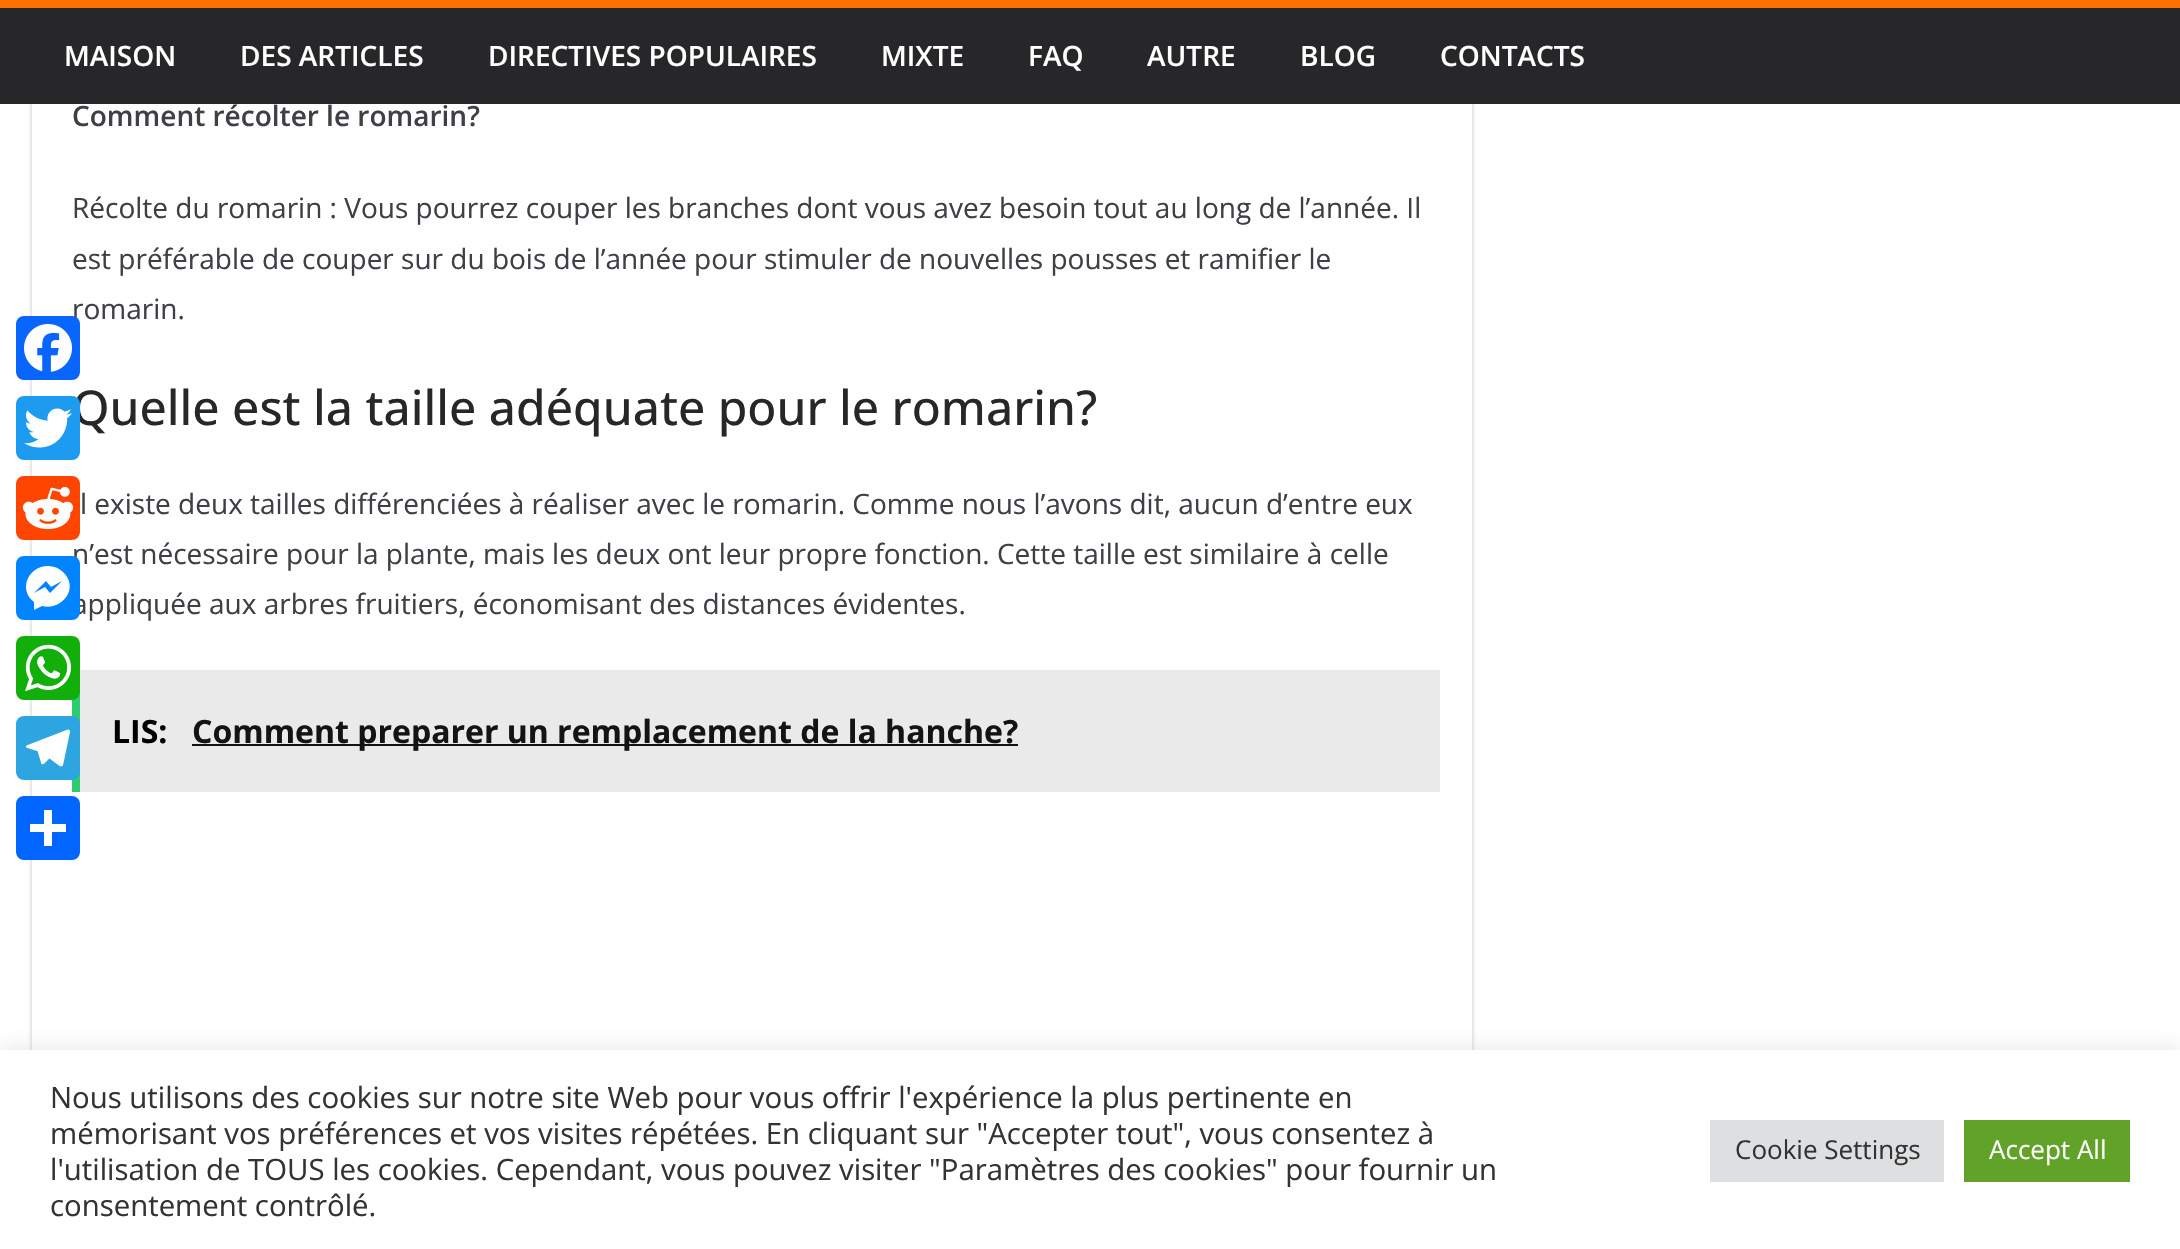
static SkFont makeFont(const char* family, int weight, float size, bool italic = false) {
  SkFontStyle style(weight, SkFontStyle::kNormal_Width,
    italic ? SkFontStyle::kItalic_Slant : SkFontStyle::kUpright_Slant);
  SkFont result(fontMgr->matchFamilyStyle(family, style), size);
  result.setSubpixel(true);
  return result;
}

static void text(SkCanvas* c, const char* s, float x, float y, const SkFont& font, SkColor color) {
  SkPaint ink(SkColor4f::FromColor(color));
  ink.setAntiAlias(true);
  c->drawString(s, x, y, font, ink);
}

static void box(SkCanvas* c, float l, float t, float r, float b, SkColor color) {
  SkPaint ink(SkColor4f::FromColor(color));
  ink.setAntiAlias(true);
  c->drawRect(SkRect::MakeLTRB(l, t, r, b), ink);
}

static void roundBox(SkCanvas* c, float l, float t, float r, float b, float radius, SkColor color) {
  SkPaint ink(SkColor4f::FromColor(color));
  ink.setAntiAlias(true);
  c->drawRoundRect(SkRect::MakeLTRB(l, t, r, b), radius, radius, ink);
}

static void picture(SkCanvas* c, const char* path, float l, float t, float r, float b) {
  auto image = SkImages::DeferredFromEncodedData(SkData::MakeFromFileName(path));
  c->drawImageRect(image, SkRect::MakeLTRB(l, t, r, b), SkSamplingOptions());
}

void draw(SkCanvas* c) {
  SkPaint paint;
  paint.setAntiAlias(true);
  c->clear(0xffffffff);
  c->save();
  c->clipPath(SkPathBuilder(SkPathFillType::kEvenOdd).moveTo(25, 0).lineTo(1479, 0).lineTo(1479, 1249).lineTo(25, 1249).close().moveTo(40, -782).lineTo(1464, -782).cubicTo(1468.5f, -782, 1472, -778.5f, 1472, -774).lineTo(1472, 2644).cubicTo(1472, 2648.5f, 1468.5f, 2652, 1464, 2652).lineTo(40, 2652).cubicTo(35.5f, 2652, 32, 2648.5f, 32, 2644).lineTo(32, -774).cubicTo(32, -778.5f, 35.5f, -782, 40, -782).close().detach(), true);
  paint.setColor(0x3d000000);
  paint.setMaskFilter(SkMaskFilter::MakeBlur(kNormal_SkBlurStyle, 2));
  c->drawRoundRect(SkRect::MakeLTRB(32, -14, 1472, 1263), 8, 8, paint);
  paint.setMaskFilter(nullptr);
  c->restore();
  SkFont face1 = makeFont("Open Sans", 400, 28);
  text(c, "romarin.", 72, 319, face1, 0xff3f3f46);
  roundBox(c, 16, 316, 80, 380, 8, 0xff0866ff);
  picture(c, "img_01.png", 24, 324, 72, 372);
  SkFont face2 = makeFont("Open Sans", 500, 48);
  text(c, "Quelle est la taille adéquate pour le romarin?", 72, 425, face2, 0xff27272a);
  roundBox(c, 16, 396, 80, 460, 8, 0xff1d9bf0);
  picture(c, "img_02.png", 24, 408, 72, 448);
  roundBox(c, 16, 476, 80, 540, 8, 0xffff4500);
  picture(c, "img_03.png", 22, 486, 74, 530);
  text(c, "n’est nécessaire pour la plante, mais les deux ont leur propre fonction. Cette taille est similaire à celle", 72, 564, face1, 0xff3f3f46);
  text(c, "appliquée aux arbres fruitiers, économisant des distances évidentes.", 72, 614, face1, 0xff3f3f46);
  roundBox(c, 16, 556, 80, 620, 8, 0xff0084ff);
  paint.setColor(0xffffffff);
  c->drawPath(SkPathBuilder().moveTo(48, 566).cubicTo(28, 566, 18, 590, 34, 602).lineTo(34, 610).lineTo(42, 606).cubicTo(62, 611, 80, 588, 63, 572).cubicTo(59, 568, 54, 566, 48, 566).moveTo(50, 593).lineTo(45, 587).lineTo(34, 593).lineTo(46, 581).lineTo(51, 587).lineTo(62, 581).close().detach(), paint);
  box(c, 72, 692, 80, 792, 0xff2ecc71);
  roundBox(c, 16, 636, 80, 700, 8, 0xff12af0a);
  picture(c, "img_04.png", 25, 644, 71, 692);
  roundBox(c, 16, 716, 80, 780, 8, 0xff2ca5e0);
  picture(c, "img_05.png", 26, 729, 70, 767);
  roundBox(c, 16, 796, 80, 860, 8, 0xff0166ff);
  box(c, 44, 810, 52, 846, 0xffffffff);
  box(c, 30, 824, 66, 832, 0xffffffff);
  box(c, 0, 8, 2180, 104, 0xff27272a);
  box(c, 0, 0, 2180, 8, 0xfffc7100);
  SkFont face3 = makeFont("Open Sans", 600, 28);
  text(c, "MAISON", 64, 66, face3, 0xffffffff);
  text(c, "DES ARTICLES", 240, 66, face3, 0xffffffff);
  text(c, "DIRECTIVES POPULAIRES", 488, 66, face3, 0xffffffff);
  text(c, "MIXTE", 881, 66, face3, 0xffffffff);
  text(c, "FAQ", 1028, 66, face3, 0xffffffff);
  text(c, "AUTRE", 1147, 66, face3, 0xffffffff);
  text(c, "BLOG", 1300, 66, face3, 0xffffffff);
  text(c, "CONTACTS", 1440, 66, face3, 0xffffffff);
  text(c, "Comment récolter le romarin?", 72, 126, face3, 0xff3f3f46);
  text(c, "Récolte du romarin : Vous pourrez couper les branches dont vous avez besoin tout au long de l’année. Il", 72, 218, face1, 0xff3f3f46);
  text(c, "est préférable de couper sur du bois de l’année pour stimuler de nouvelles pousses et ramifier le", 72, 269, face1, 0xff3f3f46);
  text(c, "l existe deux tailles différenciées à réaliser avec le romarin. Comme nous l’avons dit, aucun d’entre eux", 80, 514, face1, 0xff3f3f46);
  box(c, 80, 670, 1440, 792, 0xffeaeaea);
  SkFont face4 = makeFont("Open Sans", 700, 32);
  text(c, "LIS:", 112, 743, face4, 0xff000000);
  box(c, 192, 744, 1018, 746, 0xff141414);
  text(c, "Comment preparer un remplacement de la hanche?", 192, 743, face4, 0xff141414);
  paint.setColor(0x4dacabab);
  paint.setMaskFilter(SkMaskFilter::MakeBlur(kNormal_SkBlurStyle, 10));
  c->drawRect(SkRect::MakeLTRB(0, 1048, 2180, 1248), paint);
  paint.setMaskFilter(nullptr);
  box(c, 0, 1050, 2180, 1249, 0xffffffff);
  SkFont face5 = makeFont("Open Sans", 400, 29.35f);
  text(c, "Nous utilisons des cookies sur notre site Web pour vous offrir l'expérience la plus pertinente en", 50, 1108, face5, 0xff333333);
  text(c, "mémorisant vos préférences et vos visites répétées. En cliquant sur \"Accepter tout\", vous consentez à", 50, 1144, face5, 0xff333333);
  text(c, "l'utilisation de TOUS les cookies. Cependant, vous pouvez visiter \"Paramètres des cookies\" pour fournir un", 50, 1180, face5, 0xff333333);
  text(c, "consentement contrôlé.", 50, 1216, face5, 0xff333333);
  box(c, 1710, 1120, 1944, 1182, 0xffdedfe0);
  SkFont face6 = makeFont("Open Sans", 400, 26);
  text(c, "Cookie Settings", 1735, 1159, face6, 0xff333333);
  box(c, 1964, 1120, 2130, 1182, 0xff61a229);
  text(c, "Accept All", 1989, 1159, face6, 0xffffffff);
}
